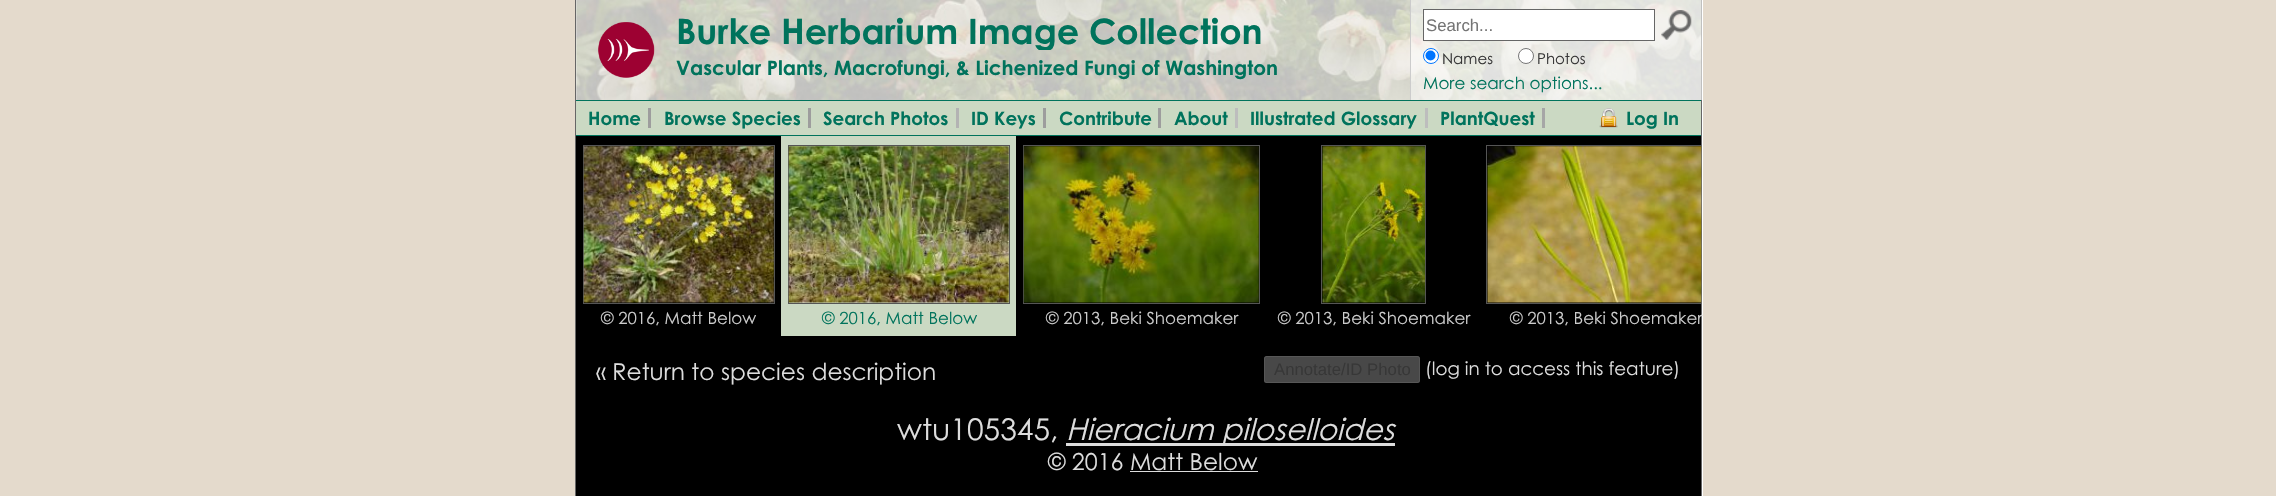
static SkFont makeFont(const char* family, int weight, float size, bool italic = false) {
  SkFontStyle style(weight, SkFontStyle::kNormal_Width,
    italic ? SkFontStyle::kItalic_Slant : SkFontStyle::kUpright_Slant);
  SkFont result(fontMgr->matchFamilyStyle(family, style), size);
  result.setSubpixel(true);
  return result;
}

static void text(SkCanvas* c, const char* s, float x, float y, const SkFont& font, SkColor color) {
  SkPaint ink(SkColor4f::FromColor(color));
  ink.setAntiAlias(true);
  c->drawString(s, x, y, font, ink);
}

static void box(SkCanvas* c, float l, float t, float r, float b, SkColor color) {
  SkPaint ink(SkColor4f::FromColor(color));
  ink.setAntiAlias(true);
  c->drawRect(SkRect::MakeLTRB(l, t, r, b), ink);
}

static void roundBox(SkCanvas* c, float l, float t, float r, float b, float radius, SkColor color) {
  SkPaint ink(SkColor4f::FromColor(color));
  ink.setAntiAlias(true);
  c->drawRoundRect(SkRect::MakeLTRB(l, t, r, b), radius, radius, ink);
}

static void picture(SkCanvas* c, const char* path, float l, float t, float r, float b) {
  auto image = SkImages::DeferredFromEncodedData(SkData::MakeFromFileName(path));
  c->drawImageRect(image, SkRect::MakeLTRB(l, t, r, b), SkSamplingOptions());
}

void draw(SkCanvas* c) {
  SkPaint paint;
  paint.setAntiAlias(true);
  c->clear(0xffe4dacc);
  box(c, 576, 0, 1703, 496, 0xffffffff);
  box(c, 1701, 0, 1702, 496, 0xff666666);
  box(c, 575, 0, 576, 496, 0xff666666);
  picture(c, "img_01.png", 576, 0, 1702, 100);
  picture(c, "img_02.png", 598, 22, 655, 78);
  c->save();
  c->clipRect(SkRect::MakeLTRB(676, 10, 1394, 50));
  SkFont face1 = makeFont("Century Gothic", 700, 35);
  text(c, "Burke Herbarium Image Collection", 676, 44, face1, 0xff00735c);
  c->restore();
  SkFont face2 = makeFont("Century Gothic", 700, 20);
  text(c, "Vascular Plants, Macrofungi, & Lichenized Fungi of Washington", 676, 75, face2, 0xff00735c);
  box(c, 1411, 0, 1702, 100, 0x80ffffff);
  box(c, 1410, 0, 1411, 100, 0xffcccccc);
  paint.setColor(0xffffffff);
  c->drawRect(SkRect::MakeLTRB(1423.5f, 9.5f, 1654.5f, 40.5f), paint);
  paint.setStyle(SkPaint::kStroke_Style);
  paint.setStrokeWidth(1);
  paint.setColor(0xff666666);
  c->drawRect(SkRect::MakeLTRB(1423.5f, 9.5f, 1654.5f, 40.5f), paint);
  SkFont face3 = makeFont("Liberation Sans", 400, 16.75f);
  text(c, "Search...", 1426, 31, face3, 0xff757575);
  picture(c, "img_03.png", 1661, 10, 1692, 40);
  paint.setStyle(SkPaint::kFill_Style);
  paint.setColor(0xffffffff);
  c->drawCircle(1431, 56, 7.5f, paint);
  paint.setStyle(SkPaint::kStroke_Style);
  paint.setColor(0xff0075ff);
  c->drawCircle(1431, 56, 7.5f, paint);
  paint.setStyle(SkPaint::kFill_Style);
  c->drawCircle(1430.5f, 55.5f, 5, paint);
  SkFont face4 = makeFont("Century Gothic", 400, 15);
  text(c, "Names", 1442, 64, face4, 0xff373737);
  paint.setColor(0xffffffff);
  c->drawCircle(1526, 56, 7.5f, paint);
  paint.setStyle(SkPaint::kStroke_Style);
  paint.setColor(0xff767676);
  c->drawCircle(1526, 56, 7.5f, paint);
  text(c, "Photos", 1537, 64, face4, 0xff373737);
  SkFont face5 = makeFont("Century Gothic", 400, 16.75f);
  text(c, "More search options...", 1423, 89, face5, 0xff00735c);
  box(c, 576, 101, 1701, 135, 0xffcbd9c3);
  box(c, 576, 100, 1701, 101, 0xff00735c);
  box(c, 576, 135, 1701, 136, 0xff00735c);
  box(c, 648, 108, 651, 128, 0xff9d9d9d);
  SkFont face6 = makeFont("Century Gothic", 700, 18.3f);
  text(c, "Home", 588, 125, face6, 0xff00735c);
  box(c, 808, 108, 811, 128, 0xff9d9d9d);
  text(c, "Browse Species", 664, 125, face6, 0xff00735c);
  box(c, 956, 108, 959, 128, 0xffb3b3b3);
  text(c, "Search Photos", 823, 125, face6, 0xff00735c);
  box(c, 1043, 108, 1046, 128, 0xff9d9d9d);
  text(c, "ID Keys", 971, 125, face6, 0xff00735c);
  box(c, 1158, 108, 1161, 128, 0xff9d9d9d);
  text(c, "Contribute", 1059, 125, face6, 0xff00735c);
  box(c, 1235, 108, 1238, 128, 0xffbdbdbd);
  text(c, "About", 1174, 125, face6, 0xff00735c);
  box(c, 1425, 108, 1428, 128, 0xffbdbdbd);
  text(c, "Illustrated Glossary", 1250, 125, face6, 0xff00735c);
  box(c, 1542, 108, 1545, 128, 0xffa6a6a6);
  text(c, "PlantQuest", 1440, 125, face6, 0xff00735c);
  picture(c, "img_04.png", 1599, 108, 1618, 128);
  text(c, "Log In", 1626, 125, face6, 0xff00735c);
  box(c, 576, 136, 1701, 496, 0xff000000);
  paint.setColor(0xff555555);
  c->drawRect(SkRect::MakeLTRB(583.5f, 145.5f, 774.5f, 303.5f), paint);
  picture(c, "img_05.png", 583, 146, 774, 303);
  text(c, "© 2016, Matt Below", 601, 324, face5, 0xffcccccc);
  box(c, 781, 136, 1016, 336, 0xffcbd9c3);
  c->drawRect(SkRect::MakeLTRB(788.5f, 145.5f, 1009.5f, 303.5f), paint);
  picture(c, "img_06.png", 788, 146, 1009, 303);
  text(c, "© 2016, Matt Below", 822, 324, face5, 0xff00735c);
  c->drawRect(SkRect::MakeLTRB(1023.5f, 145.5f, 1259.5f, 303.5f), paint);
  picture(c, "img_07.png", 1023, 146, 1259, 303);
  text(c, "© 2013, Beki Shoemaker", 1046, 324, face5, 0xffcccccc);
  c->drawRect(SkRect::MakeLTRB(1321.5f, 145.5f, 1425.5f, 303.5f), paint);
  picture(c, "img_08.png", 1322, 146, 1425, 303);
  text(c, "© 2013, Beki Shoemaker", 1278, 324, face5, 0xffcccccc);
  c->save();
  c->clipRect(SkRect::MakeLTRB(576, 136, 1701, 336));
  c->drawRect(SkRect::MakeLTRB(1486.5f, 145.5f, 1724.5f, 303.5f), paint);
  c->restore();
  picture(c, "img_09.png", 1487, 146, 1702, 303);
  text(c, "© 2013, Beki Shoemaker", 1510, 324, face5, 0xffcccccc);
  SkFont face7 = makeFont("Century Gothic", 400, 23.3f);
  text(c, "« Return to species description", 596, 380, face7, 0xffdddddd);
  roundBox(c, 1264, 356, 1420, 383, 2.5f, 0xff484848);
  paint.setColor(0x4d767676);
  c->drawRoundRect(SkRect::MakeLTRB(1264.5f, 356.5f, 1419.5f, 382.5f), 2, 2, paint);
  text(c, "Annotate/ID Photo", 1274, 375, face3, 0xff373737);
  SkFont face8 = makeFont("Century Gothic", 400, 18.3f);
  text(c, "(log in to access this feature)", 1425, 375, face8, 0xffdddddd);
  SkFont face9 = makeFont("Century Gothic", 400, 30);
  text(c, "wtu105345,", 897, 440, face9, 0xffdddddd);
  box(c, 1066, 443, 1395, 446, 0xffdddddd);
  SkFont face10 = makeFont("Century Gothic", 400, 30, true);
  text(c, "Hieracium piloselloides", 1066, 440, face10, 0xffdddddd);
  text(c, "© 2016 Matt Below", 1048, 470, face7, 0xffdddddd);
  box(c, 1130, 471, 1258, 472, 0xffdddddd);
}
